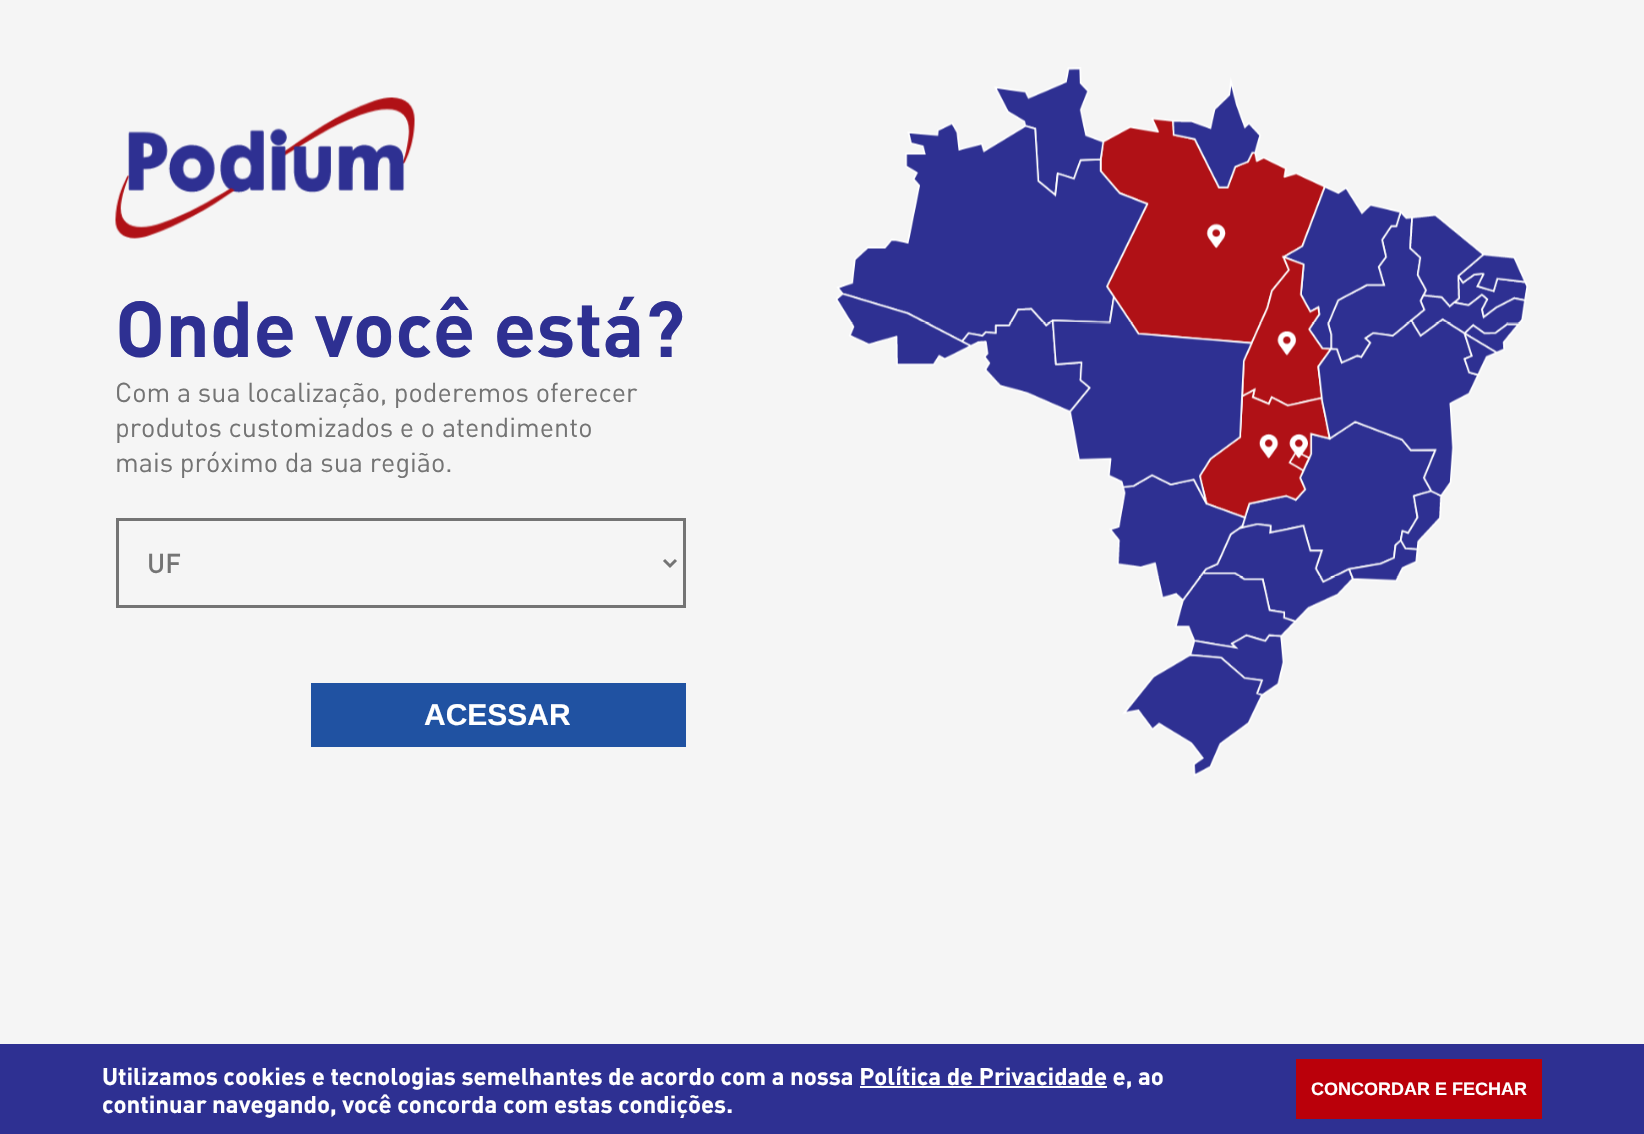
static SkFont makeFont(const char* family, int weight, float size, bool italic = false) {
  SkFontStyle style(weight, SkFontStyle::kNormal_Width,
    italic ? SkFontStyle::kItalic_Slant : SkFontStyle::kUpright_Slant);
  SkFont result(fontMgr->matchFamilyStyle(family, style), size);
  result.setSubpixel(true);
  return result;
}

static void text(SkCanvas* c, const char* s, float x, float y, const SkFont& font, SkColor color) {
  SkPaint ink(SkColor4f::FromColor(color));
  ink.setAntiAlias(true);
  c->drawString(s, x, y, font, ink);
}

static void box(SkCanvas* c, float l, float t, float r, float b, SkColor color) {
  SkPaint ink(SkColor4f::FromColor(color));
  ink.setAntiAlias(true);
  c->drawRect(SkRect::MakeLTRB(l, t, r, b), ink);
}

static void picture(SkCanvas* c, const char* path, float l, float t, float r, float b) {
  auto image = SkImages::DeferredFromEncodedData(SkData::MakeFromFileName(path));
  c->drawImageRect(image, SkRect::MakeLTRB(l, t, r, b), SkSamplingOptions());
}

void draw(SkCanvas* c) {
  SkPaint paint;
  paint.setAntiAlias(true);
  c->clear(0xfff5f5f5);
  picture(c, "img_01.png", 115, 97, 415, 239);
  SkFont face1 = makeFont("DIN", 700, 78);
  text(c, "Onde você está?", 115, 357, face1, 0xff2e3092);
  SkFont face2 = makeFont("DIN", 400, 27);
  text(c, "Com a sua localização, poderemos oferecer", 115, 402, face2, 0xff747474);
  text(c, "produtos customizados e o atendimento", 115, 437, face2, 0xff747474);
  text(c, "mais próximo da sua região.", 115, 472, face2, 0xff747474);
  paint.setStyle(SkPaint::kStroke_Style);
  paint.setStrokeWidth(3);
  paint.setColor(0xff747474);
  c->drawRect(SkRect::MakeLTRB(117.5f, 519.5f, 684.5f, 606.5f), paint);
  c->drawPath(SkPathBuilder().moveTo(664, 560).lineTo(670, 566).lineTo(676, 560).detach(), paint);
  SkFont face3 = makeFont("DIN", 500, 27);
  text(c, "UF", 147, 573, face3, 0xff747474);
  box(c, 311, 683, 686, 747, 0xff2052a2);
  SkFont face4 = makeFont("Liberation Sans", 700, 30);
  text(c, "ACESSAR", 424, 725, face4, 0xffffffff);
  picture(c, "img_02.png", 836, 67, 1528, 777);
  box(c, 0, 1044, 1644, 1134, 0xff2e3092);
  SkFont face5 = makeFont("DIN", 700, 24);
  text(c, "Utilizamos cookies e tecnologias semelhantes de acordo com a nossa Política de Privacidade e, ao", 102, 1085, face5, 0xffffffff);
  box(c, 860, 1086, 1107, 1088, 0xffffffff);
  text(c, "continuar navegando, você concorda com estas condições.", 102, 1113, face5, 0xffffffff);
  box(c, 1296, 1059, 1542, 1119, 0xffba000a);
  SkFont face6 = makeFont("Liberation Sans", 700, 18);
  text(c, "CONCORDAR E FECHAR", 1311, 1095, face6, 0xffffffff);
}
